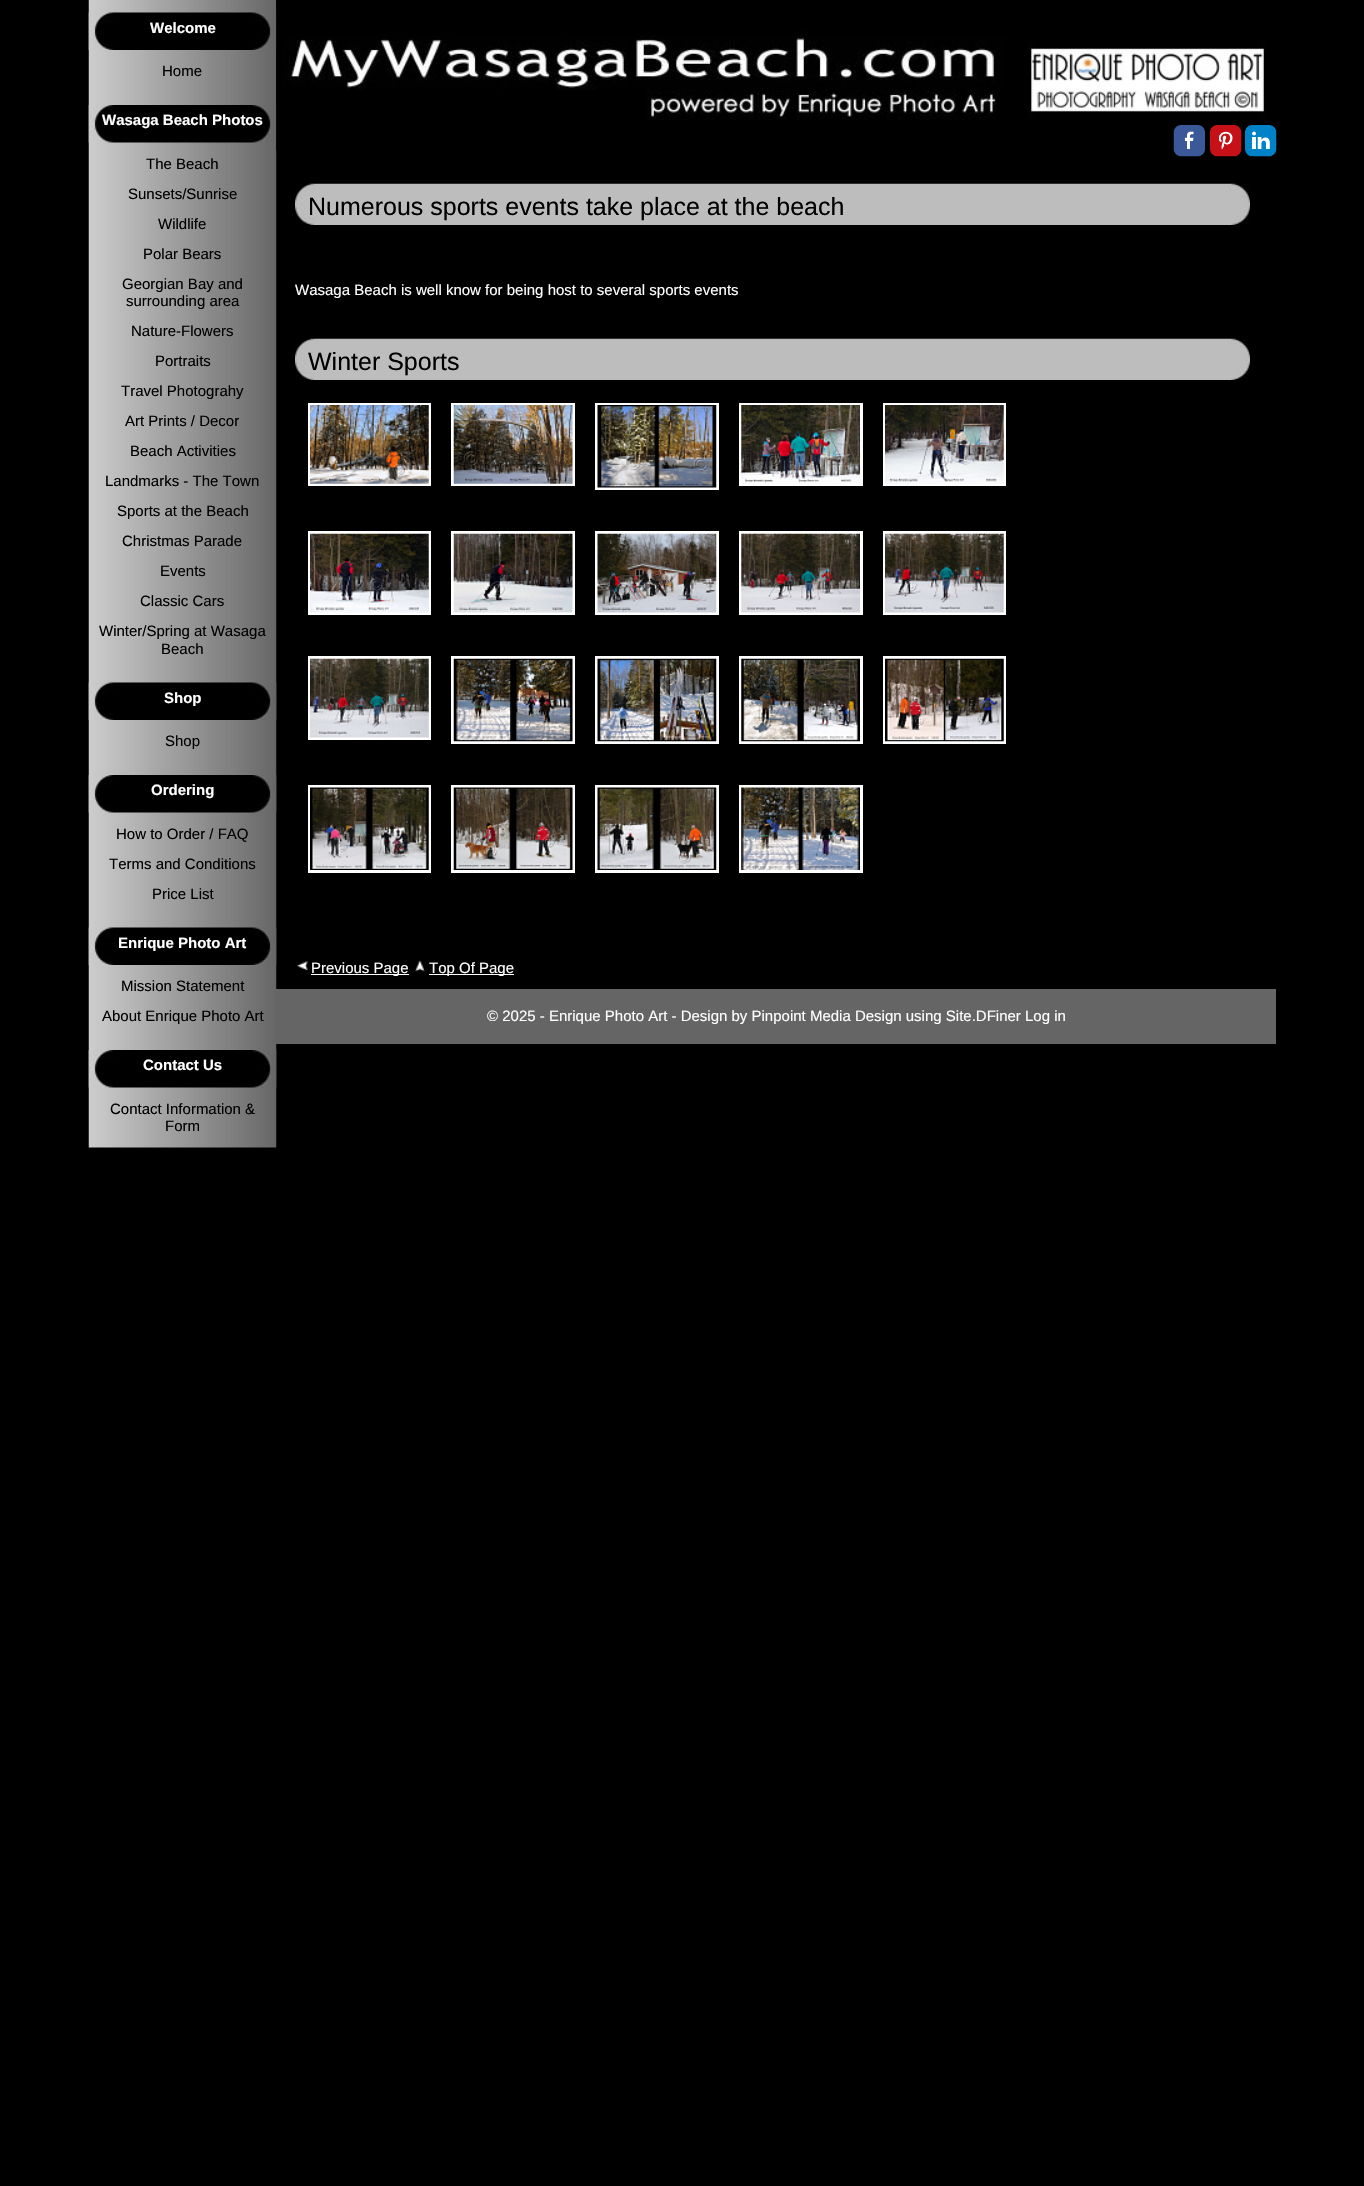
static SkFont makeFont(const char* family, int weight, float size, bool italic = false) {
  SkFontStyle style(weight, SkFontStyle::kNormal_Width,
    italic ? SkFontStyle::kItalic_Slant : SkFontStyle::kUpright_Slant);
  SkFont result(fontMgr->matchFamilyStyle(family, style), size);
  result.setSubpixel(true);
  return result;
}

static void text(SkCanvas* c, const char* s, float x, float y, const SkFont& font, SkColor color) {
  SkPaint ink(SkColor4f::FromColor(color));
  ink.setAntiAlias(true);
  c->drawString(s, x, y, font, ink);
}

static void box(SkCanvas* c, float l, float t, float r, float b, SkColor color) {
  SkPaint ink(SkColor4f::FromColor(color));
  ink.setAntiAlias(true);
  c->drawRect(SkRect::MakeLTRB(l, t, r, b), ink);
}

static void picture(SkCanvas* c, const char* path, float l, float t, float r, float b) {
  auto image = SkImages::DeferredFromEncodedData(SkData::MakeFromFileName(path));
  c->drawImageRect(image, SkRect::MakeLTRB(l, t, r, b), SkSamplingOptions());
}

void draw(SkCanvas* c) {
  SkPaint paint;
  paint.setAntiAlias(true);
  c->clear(0xff000000);
  picture(c, "img_01.png", 88, 0, 277, 1148);
  picture(c, "img_02.png", 88, 12, 277, 50);
  SkFont face1 = makeFont("Liberation Sans", 700, 15);
  text(c, "Welcome", 150, 33, face1, 0xffffffff);
  SkFont face2 = makeFont("Liberation Sans", 400, 15);
  text(c, "Home", 162, 76, face2, 0xff000000);
  picture(c, "img_03.png", 88, 105, 277, 143);
  text(c, "Wasaga Beach Photos", 102, 125, face1, 0xffffffff);
  text(c, "The Beach", 146, 169, face2, 0xff000000);
  text(c, "Sunsets/Sunrise", 128, 199, face2, 0xff000000);
  text(c, "Wildlife", 158, 229, face2, 0xff000000);
  text(c, "Polar Bears", 143, 259, face2, 0xff000000);
  text(c, "Georgian Bay and", 122, 289, face2, 0xff000000);
  text(c, "surrounding area", 126, 306, face2, 0xff000000);
  text(c, "Nature-Flowers", 131, 336, face2, 0xff000000);
  text(c, "Portraits", 155, 366, face2, 0xff000000);
  text(c, "Travel Photograhy", 121, 396, face2, 0xff000000);
  text(c, "Art Prints / Decor", 125, 426, face2, 0xff000000);
  text(c, "Beach Activities", 130, 456, face2, 0xff000000);
  text(c, "Landmarks - The Town", 105, 486, face2, 0xff000000);
  text(c, "Sports at the Beach", 117, 516, face2, 0xff000000);
  text(c, "Christmas Parade", 122, 546, face2, 0xff000000);
  text(c, "Events", 160, 576, face2, 0xff000000);
  text(c, "Classic Cars", 140, 606, face2, 0xff000000);
  text(c, "Winter/Spring at Wasaga", 99, 636, face2, 0xff000000);
  text(c, "Beach", 161, 654, face2, 0xff000000);
  picture(c, "img_02.png", 88, 682, 277, 720);
  text(c, "Shop", 164, 703, face1, 0xffffffff);
  text(c, "Shop", 165, 746, face2, 0xff000000);
  picture(c, "img_04.png", 88, 775, 277, 813);
  text(c, "Ordering", 151, 795, face1, 0xffffffff);
  text(c, "How to Order / FAQ", 116, 839, face2, 0xff000000);
  text(c, "Terms and Conditions", 109, 869, face2, 0xff000000);
  text(c, "Price List", 152, 899, face2, 0xff000000);
  picture(c, "img_02.png", 88, 927, 277, 965);
  text(c, "Enrique Photo Art", 118, 948, face1, 0xffffffff);
  text(c, "Mission Statement", 121, 991, face2, 0xff000000);
  text(c, "About Enrique Photo Art", 102, 1021, face2, 0xff000000);
  picture(c, "img_03.png", 88, 1050, 277, 1088);
  text(c, "Contact Us", 143, 1070, face1, 0xffffffff);
  text(c, "Contact Information &", 110, 1114, face2, 0xff000000);
  text(c, "Form", 165, 1131, face2, 0xff000000);
  picture(c, "img_05.png", 276, 0, 1266, 150);
  picture(c, "img_06.png", 1173, 125, 1205, 157);
  picture(c, "img_07.png", 1210, 125, 1242, 157);
  picture(c, "img_08.png", 1245, 125, 1277, 157);
  picture(c, "img_09.png", 295, 183, 1250, 225);
  SkFont face3 = makeFont("Liberation Sans", 400, 25);
  text(c, "Numerous sports events take place at the beach", 308, 215, face3, 0xff000000);
  text(c, "Wasaga Beach is well know for being host to several sports events", 295, 295, face2, 0xffffffff);
  picture(c, "img_09.png", 295, 338, 1250, 380);
  text(c, "Winter Sports", 308, 370, face3, 0xff000000);
  paint.setStyle(SkPaint::kStroke_Style);
  paint.setStrokeWidth(3);
  paint.setColor(0xffffffff);
  c->drawRect(SkRect::MakeLTRB(309.5f, 404.5f, 429.5f, 484.5f), paint);
  picture(c, "img_10.png", 310, 405, 429, 484);
  c->drawRect(SkRect::MakeLTRB(452.5f, 404.5f, 573.5f, 484.5f), paint);
  picture(c, "img_11.png", 453, 405, 573, 484);
  c->drawRect(SkRect::MakeLTRB(596.5f, 404.5f, 717.5f, 488.5f), paint);
  picture(c, "img_12.png", 597, 405, 717, 488);
  c->drawRect(SkRect::MakeLTRB(740.5f, 404.5f, 861.5f, 484.5f), paint);
  picture(c, "img_13.png", 741, 405, 860, 484);
  c->drawRect(SkRect::MakeLTRB(884.5f, 404.5f, 1004.5f, 484.5f), paint);
  picture(c, "img_14.png", 885, 405, 1004, 484);
  c->drawRect(SkRect::MakeLTRB(309.5f, 532.5f, 429.5f, 613.5f), paint);
  picture(c, "img_15.png", 310, 533, 429, 613);
  c->drawRect(SkRect::MakeLTRB(452.5f, 532.5f, 573.5f, 613.5f), paint);
  picture(c, "img_16.png", 453, 533, 573, 613);
  c->drawRect(SkRect::MakeLTRB(596.5f, 532.5f, 717.5f, 613.5f), paint);
  picture(c, "img_17.png", 597, 533, 717, 613);
  c->drawRect(SkRect::MakeLTRB(740.5f, 532.5f, 861.5f, 613.5f), paint);
  picture(c, "img_18.png", 741, 533, 860, 613);
  c->drawRect(SkRect::MakeLTRB(884.5f, 532.5f, 1004.5f, 613.5f), paint);
  picture(c, "img_19.png", 885, 533, 1004, 613);
  c->drawRect(SkRect::MakeLTRB(309.5f, 657.5f, 429.5f, 738.5f), paint);
  picture(c, "img_20.png", 310, 658, 429, 738);
  c->drawRect(SkRect::MakeLTRB(452.5f, 657.5f, 573.5f, 742.5f), paint);
  picture(c, "img_21.png", 453, 658, 573, 742);
  c->drawRect(SkRect::MakeLTRB(596.5f, 657.5f, 717.5f, 742.5f), paint);
  picture(c, "img_22.png", 597, 658, 717, 742);
  c->drawRect(SkRect::MakeLTRB(740.5f, 657.5f, 861.5f, 742.5f), paint);
  picture(c, "img_23.png", 741, 658, 860, 742);
  c->drawRect(SkRect::MakeLTRB(884.5f, 657.5f, 1004.5f, 742.5f), paint);
  picture(c, "img_24.png", 885, 658, 1004, 742);
  c->drawRect(SkRect::MakeLTRB(309.5f, 786.5f, 429.5f, 871.5f), paint);
  picture(c, "img_25.png", 310, 787, 429, 870);
  c->drawRect(SkRect::MakeLTRB(452.5f, 786.5f, 573.5f, 871.5f), paint);
  picture(c, "img_26.png", 453, 787, 573, 870);
  c->drawRect(SkRect::MakeLTRB(596.5f, 786.5f, 717.5f, 871.5f), paint);
  picture(c, "img_27.png", 597, 787, 717, 870);
  c->drawRect(SkRect::MakeLTRB(740.5f, 786.5f, 861.5f, 871.5f), paint);
  picture(c, "img_28.png", 741, 787, 860, 870);
  picture(c, "img_29.png", 297, 961, 308, 971);
  box(c, 311, 974, 409, 975, 0xffffffff);
  text(c, "Previous Page", 311, 973, face2, 0xffffffff);
  picture(c, "img_30.png", 415, 960, 425, 972);
  box(c, 429, 974, 514, 975, 0xffffffff);
  text(c, "Top Of Page", 429, 973, face2, 0xffffffff);
  box(c, 276, 989, 1276, 1044, 0xff656565);
  text(c, "© 2025 - Enrique Photo Art - Design by Pinpoint Media Design using Site.DFiner Log in", 487, 1021, face2, 0xffffffff);
}
